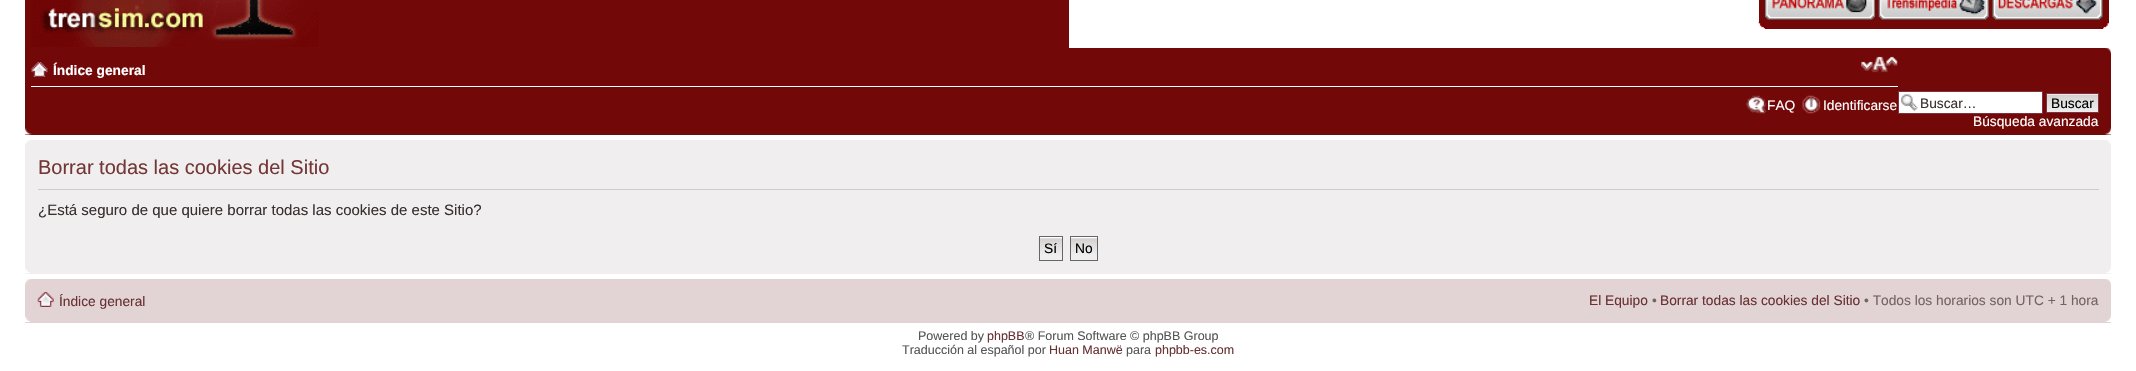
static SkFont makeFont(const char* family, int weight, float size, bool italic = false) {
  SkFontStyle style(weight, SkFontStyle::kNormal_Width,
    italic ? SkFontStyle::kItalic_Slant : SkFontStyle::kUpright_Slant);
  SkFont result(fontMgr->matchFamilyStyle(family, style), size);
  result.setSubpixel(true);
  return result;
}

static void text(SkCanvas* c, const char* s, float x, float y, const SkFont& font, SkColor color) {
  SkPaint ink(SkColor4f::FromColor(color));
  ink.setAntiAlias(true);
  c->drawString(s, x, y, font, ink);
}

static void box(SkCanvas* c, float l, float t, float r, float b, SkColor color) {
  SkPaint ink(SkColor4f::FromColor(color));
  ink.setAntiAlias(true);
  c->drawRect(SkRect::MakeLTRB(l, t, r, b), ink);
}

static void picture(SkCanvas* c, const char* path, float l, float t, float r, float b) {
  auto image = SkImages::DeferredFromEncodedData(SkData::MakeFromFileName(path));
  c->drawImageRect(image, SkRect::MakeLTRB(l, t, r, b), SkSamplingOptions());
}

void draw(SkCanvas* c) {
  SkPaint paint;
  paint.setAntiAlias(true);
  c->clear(0xffffffff);
  box(c, 25, 0, 1069, 48, 0xff730808);
  picture(c, "img_01.png", 31, 0, 319, 47);
  box(c, 1759, 0, 2109, 23, 0xff730808);
  picture(c, "img_02.png", 1765, 0, 1875, 20);
  picture(c, "img_03.png", 1878, 0, 1989, 20);
  picture(c, "img_04.png", 1992, 0, 2103, 20);
  picture(c, "img_05.png", 1758, 22, 1765, 29);
  box(c, 1765, 23, 2103, 29, 0xff730808);
  picture(c, "img_06.png", 2102, 22, 2109, 29);
  box(c, 25, 48, 2111, 135, 0xff730808);
  picture(c, "img_07.png", 2105, 48, 2111, 54);
  box(c, 31, 86, 1898, 87, 0xffffffff);
  picture(c, "img_08.png", 31, 62, 48, 77);
  SkFont face1 = makeFont("Liberation Sans", 700, 13.75f);
  text(c, "Índice general", 53, 75, face1, 0xffffffff);
  picture(c, "img_09.png", 1861, 56, 1898, 73);
  picture(c, "img_10.png", 1746, 95, 1767, 114);
  SkFont face2 = makeFont("Liberation Sans", 400, 13.75f);
  text(c, "FAQ", 1767, 110, face2, 0xffffffff);
  picture(c, "img_11.png", 1802, 95, 1821, 114);
  text(c, "Identificarse", 1823, 110, face2, 0xffffffff);
  box(c, 1899, 92, 2042, 113, 0xffffffff);
  picture(c, "img_12.png", 1901, 94, 1918, 111);
  paint.setStyle(SkPaint::kStroke_Style);
  paint.setStrokeWidth(1);
  paint.setColor(0xff7f313e);
  c->drawRect(SkRect::MakeLTRB(1898.5f, 91.5f, 2042.5f, 113.5f), paint);
  text(c, "Buscar…", 1920, 108, face2, 0xff38302f);
  picture(c, "img_13.png", 2047, 94, 2098, 112);
  c->drawRect(SkRect::MakeLTRB(2046.5f, 93.5f, 2098.5f, 112.5f), paint);
  text(c, "Buscar", 2051, 108, face2, 0xff000000);
  text(c, "Búsqueda avanzada", 1973, 126, face2, 0xffffffff);
  picture(c, "img_14.png", 25, 128, 32, 135);
  picture(c, "img_15.png", 2105, 128, 2111, 135);
  box(c, 25, 140, 2111, 274, 0xfff1eeef);
  picture(c, "img_16.png", 25, 140, 30, 145);
  picture(c, "img_17.png", 2106, 140, 2111, 145);
  box(c, 38, 189, 2099, 190, 0xffcccccc);
  SkFont face3 = makeFont("Liberation Sans", 400, 20);
  text(c, "Borrar todas las cookies del Sitio", 38, 174, face3, 0xff733836);
  SkFont face4 = makeFont("Liberation Sans", 400, 15);
  text(c, "¿Está seguro de que quiere borrar todas las cookies de este Sitio?", 38, 215, face4, 0xff38302f);
  picture(c, "img_18.png", 1038, 237, 1062, 261);
  paint.setColor(0xff666666);
  c->drawRect(SkRect::MakeLTRB(1039.5f, 236.5f, 1062.5f, 260.5f), paint);
  text(c, "Sí", 1044, 253, face2, 0xff000000);
  picture(c, "img_19.png", 1071, 237, 1097, 260);
  c->drawRect(SkRect::MakeLTRB(1070.5f, 236.5f, 1097.5f, 260.5f), paint);
  text(c, "No", 1075, 253, face2, 0xff000000);
  picture(c, "img_20.png", 25, 268, 31, 274);
  picture(c, "img_21.png", 2106, 268, 2111, 274);
  box(c, 25, 279, 2111, 323, 0xffe2d3d4);
  picture(c, "img_22.png", 25, 279, 31, 285);
  picture(c, "img_23.png", 2105, 279, 2111, 285);
  picture(c, "img_24.png", 37, 292, 54, 307);
  text(c, "Índice general", 59, 306, face2, 0xff683133);
  text(c, "El Equipo", 1589, 305, face2, 0xff683133);
  text(c, "•", 1652, 305, face2, 0xff746461);
  text(c, "Borrar todas las cookies del Sitio", 1660, 305, face2, 0xff683133);
  text(c, "• Todos los horarios son UTC + 1 hora", 1864, 305, face2, 0xff746461);
  picture(c, "img_25.png", 25, 316, 31, 322);
  picture(c, "img_26.png", 2105, 316, 2111, 322);
  SkFont face5 = makeFont("Liberation Sans", 400, 12.5f);
  text(c, "Powered by", 918, 340, face5, 0xff555555);
  text(c, "phpBB", 987, 340, face5, 0xff683133);
  text(c, "® Forum Software © phpBB Group", 1025, 340, face5, 0xff555555);
  text(c, "Traducción al español por", 902, 354, face5, 0xff555555);
  text(c, "Huan Manwë", 1049, 354, face5, 0xff683133);
  text(c, "para", 1126, 354, face5, 0xff555555);
  text(c, "phpbb-es.com", 1155, 354, face5, 0xff683133);
}
